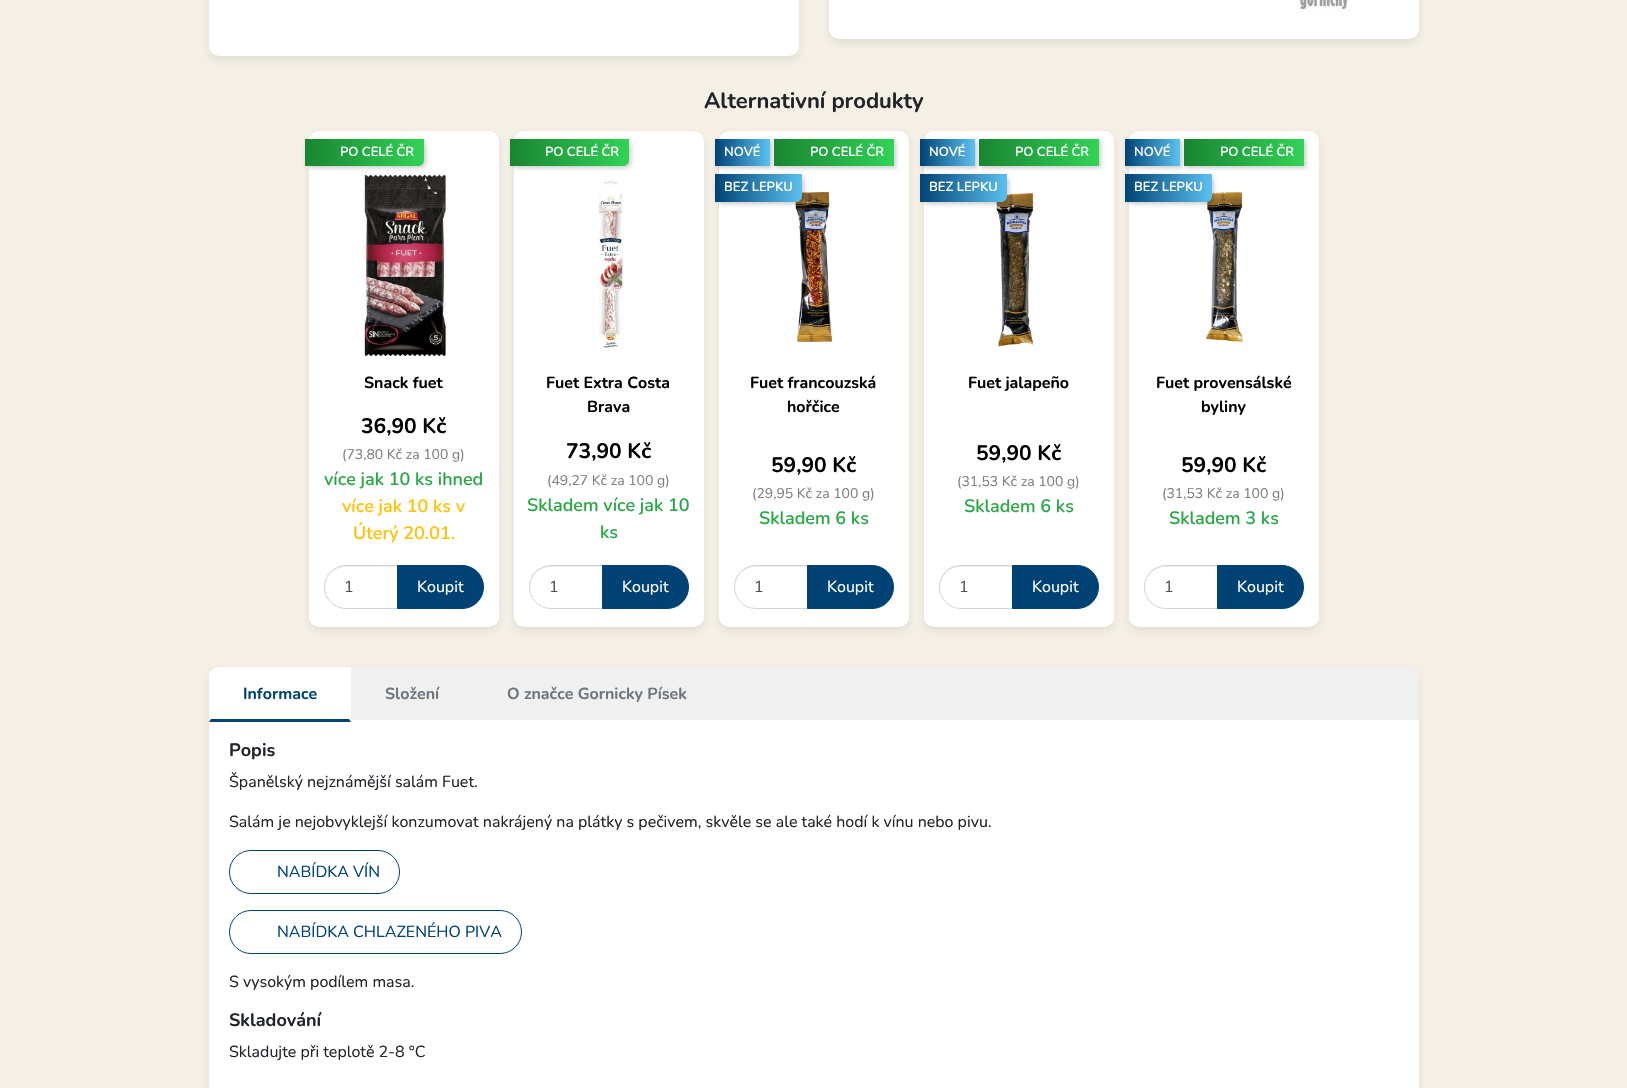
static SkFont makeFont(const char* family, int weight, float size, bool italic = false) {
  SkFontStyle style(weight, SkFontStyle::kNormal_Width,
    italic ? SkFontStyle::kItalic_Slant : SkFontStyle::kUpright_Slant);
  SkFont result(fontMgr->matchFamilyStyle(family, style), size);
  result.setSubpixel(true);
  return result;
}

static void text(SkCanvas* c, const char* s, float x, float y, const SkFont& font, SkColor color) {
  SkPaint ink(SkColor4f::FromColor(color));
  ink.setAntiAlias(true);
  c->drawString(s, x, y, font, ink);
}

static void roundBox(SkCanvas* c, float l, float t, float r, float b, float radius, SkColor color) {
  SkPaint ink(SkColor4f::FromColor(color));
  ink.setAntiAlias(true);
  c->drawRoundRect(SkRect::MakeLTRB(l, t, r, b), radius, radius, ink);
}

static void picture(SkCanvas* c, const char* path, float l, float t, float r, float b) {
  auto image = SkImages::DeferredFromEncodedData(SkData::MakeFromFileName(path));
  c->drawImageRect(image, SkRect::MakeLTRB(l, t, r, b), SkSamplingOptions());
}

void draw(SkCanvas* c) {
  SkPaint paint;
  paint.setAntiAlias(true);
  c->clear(0xfff5f0e5);
  paint.setColor(0x1a2a354f);
  paint.setMaskFilter(SkMaskFilter::MakeBlur(kNormal_SkBlurStyle, 4));
  c->drawRoundRect(SkRect::MakeLTRB(209, -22, 799, 60), 10, 10, paint);
  paint.setMaskFilter(nullptr);
  roundBox(c, 209, -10, 799, 56, 10, 0xffffffff);
  picture(c, "img_01.png", 209, 49, 799, 50);
  paint.setMaskFilter(SkMaskFilter::MakeBlur(kNormal_SkBlurStyle, 4));
  c->drawRoundRect(SkRect::MakeLTRB(829, -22, 1419, 43), 10, 10, paint);
  paint.setMaskFilter(nullptr);
  roundBox(c, 829, -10, 1419, 39, 10, 0xffffffff);
  picture(c, "img_02.png", 1297, 0, 1353, 15);
  SkFont face1 = makeFont("Nunito", 700, 22);
  text(c, "Alternativní produkty", 704, 108, face1, 0xff212529);
  paint.setMaskFilter(SkMaskFilter::MakeBlur(kNormal_SkBlurStyle, 4));
  c->drawRoundRect(SkRect::MakeLTRB(309, 135, 499, 631), 10, 10, paint);
  paint.setMaskFilter(nullptr);
  roundBox(c, 309, 131, 499, 627, 10, 0xffffffff);
  picture(c, "img_03.png", 361, 171, 448, 357);
  paint.setColor(0x33000000);
  paint.setMaskFilter(SkMaskFilter::MakeBlur(kNormal_SkBlurStyle, 2));
  c->drawRoundRect(SkRect::MakeLTRB(307, 141, 426, 168), 6, 6, paint);
  paint.setMaskFilter(nullptr);
  {
    const SkColor colors[] = {0xff198532, 0xff31d356};
    const float stops[] = {0, 1};
    const SkPoint ends[] = {{305, 153}, {424, 153}};
    paint.setShader(SkGradientShader::MakeLinear(ends, colors, stops, 2, SkTileMode::kClamp));
    paint.setAlpha(255);
  }
  c->drawPath(SkPathBuilder().moveTo(305, 139).lineTo(424, 139).lineTo(424, 160).cubicTo(424, 163.5f, 421.5f, 166, 418, 166).lineTo(305, 166).close().detach(), paint);
  SkFont face2 = makeFont("Nunito", 600, 13);
  text(c, "PO CELÉ ČR", 340, 156, face2, 0xffffffff);
  SkFont face3 = makeFont("Nunito", 700, 16);
  text(c, "Snack fuet", 364, 388, face3, 0xff000000);
  SkFont face4 = makeFont("Nunito", 700, 21);
  text(c, "36,90 Kč", 361, 433, face4, 0xff000000);
  SkFont face5 = makeFont("Nunito", 400, 14);
  text(c, "(73,80 Kč za 100 g)", 342, 459, face5, 0xff808080);
  SkFont face6 = makeFont("Nunito", 600, 18);
  text(c, "více jak 10 ks ihned", 324, 485, face6, 0xff28a745);
  text(c, "více jak 10 ks v", 342, 512, face6, 0xffffc107);
  text(c, "Úterý 20.01.", 353, 539, face6, 0xffffc107);
  paint.setShader(nullptr);
  paint.setColor(0xffececec);
  c->drawPath(SkPathBuilder().moveTo(346, 567).lineTo(397, 567).lineTo(397, 566).lineTo(346, 566).cubicTo(334, 566, 325, 575, 325, 587).cubicTo(325, 576, 334, 567, 346, 567).close().detach(), paint);
  paint.setStyle(SkPaint::kStroke_Style);
  paint.setStrokeWidth(1);
  paint.setColor(0xffced4da);
  c->drawPath(SkPathBuilder().moveTo(346, 565.5f).lineTo(397.5f, 565.5f).lineTo(397.5f, 608.5f).lineTo(346, 608.5f).cubicTo(334, 608.5f, 324.5f, 599, 324.5f, 587).cubicTo(324.5f, 575, 334, 565.5f, 346, 565.5f).close().detach(), paint);
  SkFont face7 = makeFont("Nunito", 400, 16);
  text(c, "1", 344, 592, face7, 0xff495057);
  paint.setStyle(SkPaint::kFill_Style);
  paint.setColor(0xff004274);
  c->drawPath(SkPathBuilder().moveTo(397.5f, 565.5f).lineTo(462, 565.5f).cubicTo(474, 565.5f, 483.5f, 575, 483.5f, 587).cubicTo(483.5f, 599, 474, 608.5f, 462, 608.5f).lineTo(397.5f, 608.5f).close().detach(), paint);
  paint.setStyle(SkPaint::kStroke_Style);
  c->drawPath(SkPathBuilder().moveTo(397.5f, 565.5f).lineTo(462, 565.5f).cubicTo(474, 565.5f, 483.5f, 575, 483.5f, 587).cubicTo(483.5f, 599, 474, 608.5f, 462, 608.5f).lineTo(397.5f, 608.5f).close().detach(), paint);
  text(c, "Koupit", 417, 592, face7, 0xffffffff);
  paint.setStyle(SkPaint::kFill_Style);
  paint.setColor(0x1a2a354f);
  paint.setMaskFilter(SkMaskFilter::MakeBlur(kNormal_SkBlurStyle, 4));
  c->drawRoundRect(SkRect::MakeLTRB(514, 135, 704, 631), 10, 10, paint);
  paint.setMaskFilter(nullptr);
  roundBox(c, 514, 131, 704, 627, 10, 0xffffffff);
  paint.setColor(0x33000000);
  paint.setMaskFilter(SkMaskFilter::MakeBlur(kNormal_SkBlurStyle, 2));
  c->drawRoundRect(SkRect::MakeLTRB(512, 141, 631, 168), 6, 6, paint);
  paint.setMaskFilter(nullptr);
  {
    const SkColor colors[] = {0xff198532, 0xff31d356};
    const float stops[] = {0, 1};
    const SkPoint ends[] = {{510, 153}, {629, 153}};
    paint.setShader(SkGradientShader::MakeLinear(ends, colors, stops, 2, SkTileMode::kClamp));
    paint.setAlpha(255);
  }
  c->drawPath(SkPathBuilder().moveTo(510, 139).lineTo(629, 139).lineTo(629, 160).cubicTo(629, 163.5f, 626.5f, 166, 623, 166).lineTo(510, 166).close().detach(), paint);
  text(c, "PO CELÉ ČR", 545, 156, face2, 0xffffffff);
  picture(c, "img_04.png", 598, 180, 624, 351);
  text(c, "Fuet Extra Costa", 546, 388, face3, 0xff000000);
  text(c, "Brava", 587, 412, face3, 0xff000000);
  text(c, "73,90 Kč", 566, 458, face4, 0xff000000);
  text(c, "(49,27 Kč za 100 g)", 547, 485, face5, 0xff808080);
  text(c, "Skladem více jak 10", 527, 511, face6, 0xff28a745);
  text(c, "ks", 600, 538, face6, 0xff28a745);
  paint.setShader(nullptr);
  paint.setColor(0xffececec);
  c->drawPath(SkPathBuilder().moveTo(551, 567).lineTo(602, 567).lineTo(602, 566).lineTo(551, 566).cubicTo(539, 566, 530, 575, 530, 587).cubicTo(530, 576, 539, 567, 551, 567).close().detach(), paint);
  paint.setStyle(SkPaint::kStroke_Style);
  paint.setColor(0xffced4da);
  c->drawPath(SkPathBuilder().moveTo(551, 565.5f).lineTo(602.5f, 565.5f).lineTo(602.5f, 608.5f).lineTo(551, 608.5f).cubicTo(539, 608.5f, 529.5f, 599, 529.5f, 587).cubicTo(529.5f, 575, 539, 565.5f, 551, 565.5f).close().detach(), paint);
  text(c, "1", 549, 592, face7, 0xff495057);
  paint.setStyle(SkPaint::kFill_Style);
  paint.setColor(0xff004274);
  c->drawPath(SkPathBuilder().moveTo(602.5f, 565.5f).lineTo(667, 565.5f).cubicTo(679, 565.5f, 688.5f, 575, 688.5f, 587).cubicTo(688.5f, 599, 679, 608.5f, 667, 608.5f).lineTo(602.5f, 608.5f).close().detach(), paint);
  paint.setStyle(SkPaint::kStroke_Style);
  c->drawPath(SkPathBuilder().moveTo(602.5f, 565.5f).lineTo(667, 565.5f).cubicTo(679, 565.5f, 688.5f, 575, 688.5f, 587).cubicTo(688.5f, 599, 679, 608.5f, 667, 608.5f).lineTo(602.5f, 608.5f).close().detach(), paint);
  text(c, "Koupit", 622, 592, face7, 0xffffffff);
  paint.setStyle(SkPaint::kFill_Style);
  paint.setColor(0x1a2a354f);
  paint.setMaskFilter(SkMaskFilter::MakeBlur(kNormal_SkBlurStyle, 4));
  c->drawRoundRect(SkRect::MakeLTRB(719, 135, 909, 631), 10, 10, paint);
  paint.setMaskFilter(nullptr);
  roundBox(c, 719, 131, 909, 627, 10, 0xffffffff);
  paint.setColor(0x33000000);
  paint.setMaskFilter(SkMaskFilter::MakeBlur(kNormal_SkBlurStyle, 2));
  c->drawRect(SkRect::MakeLTRB(717, 141, 772, 168), paint);
  paint.setMaskFilter(nullptr);
  {
    const SkColor colors[] = {0xff004374, 0xff5bc1f1};
    const float stops[] = {0, 1};
    const SkPoint ends[] = {{715, 153}, {770, 153}};
    paint.setShader(SkGradientShader::MakeLinear(ends, colors, stops, 2, SkTileMode::kClamp));
    paint.setAlpha(255);
  }
  c->drawRect(SkRect::MakeLTRB(715, 139, 770, 166), paint);
  text(c, "NOVÉ", 724, 156, face2, 0xffffffff);
  paint.setShader(nullptr);
  paint.setColor(0x33000000);
  paint.setMaskFilter(SkMaskFilter::MakeBlur(kNormal_SkBlurStyle, 2));
  c->drawRect(SkRect::MakeLTRB(776, 141, 896, 168), paint);
  paint.setMaskFilter(nullptr);
  {
    const SkColor colors[] = {0xff198532, 0xff31d356};
    const float stops[] = {0, 1};
    const SkPoint ends[] = {{774, 153}, {894, 153}};
    paint.setShader(SkGradientShader::MakeLinear(ends, colors, stops, 2, SkTileMode::kClamp));
    paint.setAlpha(255);
  }
  c->drawRect(SkRect::MakeLTRB(774, 139, 894, 166), paint);
  text(c, "PO CELÉ ČR", 810, 156, face2, 0xffffffff);
  picture(c, "img_05.png", 795, 191, 832, 342);
  paint.setShader(nullptr);
  paint.setColor(0x33000000);
  paint.setMaskFilter(SkMaskFilter::MakeBlur(kNormal_SkBlurStyle, 2));
  c->drawRoundRect(SkRect::MakeLTRB(717, 176, 804, 204), 6, 6, paint);
  paint.setMaskFilter(nullptr);
  {
    const SkColor colors[] = {0xff004374, 0xff5bc1f1};
    const float stops[] = {0, 1};
    const SkPoint ends[] = {{715, 188}, {802, 188}};
    paint.setShader(SkGradientShader::MakeLinear(ends, colors, stops, 2, SkTileMode::kClamp));
    paint.setAlpha(255);
  }
  c->drawPath(SkPathBuilder().moveTo(715, 174).lineTo(802, 174).lineTo(802, 196).cubicTo(802, 199.5f, 799.5f, 202, 796, 202).lineTo(715, 202).close().detach(), paint);
  text(c, "BEZ LEPKU", 724, 191, face2, 0xffffffff);
  text(c, "Fuet francouzská", 750, 388, face3, 0xff000000);
  text(c, "hořčice", 787, 412, face3, 0xff000000);
  text(c, "59,90 Kč", 771, 472, face4, 0xff000000);
  text(c, "(29,95 Kč za 100 g)", 752, 498, face5, 0xff808080);
  text(c, "Skladem 6 ks", 759, 524, face6, 0xff28a745);
  paint.setShader(nullptr);
  paint.setColor(0xffececec);
  c->drawPath(SkPathBuilder().moveTo(756, 567).lineTo(807, 567).lineTo(807, 566).lineTo(756, 566).cubicTo(744, 566, 735, 575, 735, 587).cubicTo(735, 576, 744, 567, 756, 567).close().detach(), paint);
  paint.setStyle(SkPaint::kStroke_Style);
  paint.setColor(0xffced4da);
  c->drawPath(SkPathBuilder().moveTo(756, 565.5f).lineTo(807.5f, 565.5f).lineTo(807.5f, 608.5f).lineTo(756, 608.5f).cubicTo(744, 608.5f, 734.5f, 599, 734.5f, 587).cubicTo(734.5f, 575, 744, 565.5f, 756, 565.5f).close().detach(), paint);
  text(c, "1", 754, 592, face7, 0xff495057);
  paint.setStyle(SkPaint::kFill_Style);
  paint.setColor(0xff004274);
  c->drawPath(SkPathBuilder().moveTo(807.5f, 565.5f).lineTo(872, 565.5f).cubicTo(884, 565.5f, 893.5f, 575, 893.5f, 587).cubicTo(893.5f, 599, 884, 608.5f, 872, 608.5f).lineTo(807.5f, 608.5f).close().detach(), paint);
  paint.setStyle(SkPaint::kStroke_Style);
  c->drawPath(SkPathBuilder().moveTo(807.5f, 565.5f).lineTo(872, 565.5f).cubicTo(884, 565.5f, 893.5f, 575, 893.5f, 587).cubicTo(893.5f, 599, 884, 608.5f, 872, 608.5f).lineTo(807.5f, 608.5f).close().detach(), paint);
  text(c, "Koupit", 827, 592, face7, 0xffffffff);
  paint.setStyle(SkPaint::kFill_Style);
  paint.setColor(0x1a2a354f);
  paint.setMaskFilter(SkMaskFilter::MakeBlur(kNormal_SkBlurStyle, 4));
  c->drawRoundRect(SkRect::MakeLTRB(924, 135, 1114, 631), 10, 10, paint);
  paint.setMaskFilter(nullptr);
  roundBox(c, 924, 131, 1114, 627, 10, 0xffffffff);
  paint.setColor(0x33000000);
  paint.setMaskFilter(SkMaskFilter::MakeBlur(kNormal_SkBlurStyle, 2));
  c->drawRect(SkRect::MakeLTRB(922, 141, 977, 168), paint);
  paint.setMaskFilter(nullptr);
  {
    const SkColor colors[] = {0xff004374, 0xff5bc1f1};
    const float stops[] = {0, 1};
    const SkPoint ends[] = {{920, 153}, {975, 153}};
    paint.setShader(SkGradientShader::MakeLinear(ends, colors, stops, 2, SkTileMode::kClamp));
    paint.setAlpha(255);
  }
  c->drawRect(SkRect::MakeLTRB(920, 139, 975, 166), paint);
  text(c, "NOVÉ", 929, 156, face2, 0xffffffff);
  paint.setShader(nullptr);
  paint.setColor(0x33000000);
  paint.setMaskFilter(SkMaskFilter::MakeBlur(kNormal_SkBlurStyle, 2));
  c->drawRect(SkRect::MakeLTRB(981, 141, 1101, 168), paint);
  paint.setMaskFilter(nullptr);
  {
    const SkColor colors[] = {0xff198532, 0xff31d356};
    const float stops[] = {0, 1};
    const SkPoint ends[] = {{979, 153}, {1099, 153}};
    paint.setShader(SkGradientShader::MakeLinear(ends, colors, stops, 2, SkTileMode::kClamp));
    paint.setAlpha(255);
  }
  c->drawRect(SkRect::MakeLTRB(979, 139, 1099, 166), paint);
  text(c, "PO CELÉ ČR", 1015, 156, face2, 0xffffffff);
  picture(c, "img_06.png", 996, 193, 1034, 347);
  paint.setShader(nullptr);
  paint.setColor(0x33000000);
  paint.setMaskFilter(SkMaskFilter::MakeBlur(kNormal_SkBlurStyle, 2));
  c->drawRoundRect(SkRect::MakeLTRB(922, 176, 1009, 204), 6, 6, paint);
  paint.setMaskFilter(nullptr);
  {
    const SkColor colors[] = {0xff004374, 0xff5bc1f1};
    const float stops[] = {0, 1};
    const SkPoint ends[] = {{920, 188}, {1007, 188}};
    paint.setShader(SkGradientShader::MakeLinear(ends, colors, stops, 2, SkTileMode::kClamp));
    paint.setAlpha(255);
  }
  c->drawPath(SkPathBuilder().moveTo(920, 174).lineTo(1007, 174).lineTo(1007, 196).cubicTo(1007, 199.5f, 1004.5f, 202, 1001, 202).lineTo(920, 202).close().detach(), paint);
  text(c, "BEZ LEPKU", 929, 191, face2, 0xffffffff);
  text(c, "Fuet jalapeño", 968, 388, face3, 0xff000000);
  text(c, "59,90 Kč", 976, 460, face4, 0xff000000);
  text(c, "(31,53 Kč za 100 g)", 957, 486, face5, 0xff808080);
  text(c, "Skladem 6 ks", 964, 512, face6, 0xff28a745);
  paint.setShader(nullptr);
  paint.setColor(0xffececec);
  c->drawPath(SkPathBuilder().moveTo(961, 567).lineTo(1012, 567).lineTo(1012, 566).lineTo(961, 566).cubicTo(949, 566, 940, 575, 940, 587).cubicTo(940, 576, 949, 567, 961, 567).close().detach(), paint);
  paint.setStyle(SkPaint::kStroke_Style);
  paint.setColor(0xffced4da);
  c->drawPath(SkPathBuilder().moveTo(961, 565.5f).lineTo(1012.5f, 565.5f).lineTo(1012.5f, 608.5f).lineTo(961, 608.5f).cubicTo(949, 608.5f, 939.5f, 599, 939.5f, 587).cubicTo(939.5f, 575, 949, 565.5f, 961, 565.5f).close().detach(), paint);
  text(c, "1", 959, 592, face7, 0xff495057);
  paint.setStyle(SkPaint::kFill_Style);
  paint.setColor(0xff004274);
  c->drawPath(SkPathBuilder().moveTo(1012.5f, 565.5f).lineTo(1077, 565.5f).cubicTo(1089, 565.5f, 1098.5f, 575, 1098.5f, 587).cubicTo(1098.5f, 599, 1089, 608.5f, 1077, 608.5f).lineTo(1012.5f, 608.5f).close().detach(), paint);
  paint.setStyle(SkPaint::kStroke_Style);
  c->drawPath(SkPathBuilder().moveTo(1012.5f, 565.5f).lineTo(1077, 565.5f).cubicTo(1089, 565.5f, 1098.5f, 575, 1098.5f, 587).cubicTo(1098.5f, 599, 1089, 608.5f, 1077, 608.5f).lineTo(1012.5f, 608.5f).close().detach(), paint);
  text(c, "Koupit", 1032, 592, face7, 0xffffffff);
  paint.setStyle(SkPaint::kFill_Style);
  paint.setColor(0x1a2a354f);
  paint.setMaskFilter(SkMaskFilter::MakeBlur(kNormal_SkBlurStyle, 4));
  c->drawRoundRect(SkRect::MakeLTRB(1129, 135, 1319, 631), 10, 10, paint);
  paint.setMaskFilter(nullptr);
  roundBox(c, 1129, 131, 1319, 627, 10, 0xffffffff);
  paint.setColor(0x33000000);
  paint.setMaskFilter(SkMaskFilter::MakeBlur(kNormal_SkBlurStyle, 2));
  c->drawRect(SkRect::MakeLTRB(1127, 141, 1182, 168), paint);
  paint.setMaskFilter(nullptr);
  {
    const SkColor colors[] = {0xff004374, 0xff5bc1f1};
    const float stops[] = {0, 1};
    const SkPoint ends[] = {{1125, 153}, {1180, 153}};
    paint.setShader(SkGradientShader::MakeLinear(ends, colors, stops, 2, SkTileMode::kClamp));
    paint.setAlpha(255);
  }
  c->drawRect(SkRect::MakeLTRB(1125, 139, 1180, 166), paint);
  text(c, "NOVÉ", 1134, 156, face2, 0xffffffff);
  paint.setShader(nullptr);
  paint.setColor(0x33000000);
  paint.setMaskFilter(SkMaskFilter::MakeBlur(kNormal_SkBlurStyle, 2));
  c->drawRect(SkRect::MakeLTRB(1186, 141, 1306, 168), paint);
  paint.setMaskFilter(nullptr);
  {
    const SkColor colors[] = {0xff198532, 0xff31d356};
    const float stops[] = {0, 1};
    const SkPoint ends[] = {{1184, 153}, {1304, 153}};
    paint.setShader(SkGradientShader::MakeLinear(ends, colors, stops, 2, SkTileMode::kClamp));
    paint.setAlpha(255);
  }
  c->drawRect(SkRect::MakeLTRB(1184, 139, 1304, 166), paint);
  text(c, "PO CELÉ ČR", 1220, 156, face2, 0xffffffff);
  picture(c, "img_07.png", 1205, 192, 1243, 342);
  paint.setShader(nullptr);
  paint.setColor(0x33000000);
  paint.setMaskFilter(SkMaskFilter::MakeBlur(kNormal_SkBlurStyle, 2));
  c->drawRoundRect(SkRect::MakeLTRB(1127, 176, 1214, 204), 6, 6, paint);
  paint.setMaskFilter(nullptr);
  {
    const SkColor colors[] = {0xff004374, 0xff5bc1f1};
    const float stops[] = {0, 1};
    const SkPoint ends[] = {{1125, 188}, {1212, 188}};
    paint.setShader(SkGradientShader::MakeLinear(ends, colors, stops, 2, SkTileMode::kClamp));
    paint.setAlpha(255);
  }
  c->drawPath(SkPathBuilder().moveTo(1125, 174).lineTo(1212, 174).lineTo(1212, 196).cubicTo(1212, 199.5f, 1209.5f, 202, 1206, 202).lineTo(1125, 202).close().detach(), paint);
  text(c, "BEZ LEPKU", 1134, 191, face2, 0xffffffff);
  text(c, "Fuet provensálské", 1156, 388, face3, 0xff000000);
  text(c, "byliny", 1201, 412, face3, 0xff000000);
  text(c, "59,90 Kč", 1181, 472, face4, 0xff000000);
  text(c, "(31,53 Kč za 100 g)", 1162, 498, face5, 0xff808080);
  text(c, "Skladem 3 ks", 1169, 524, face6, 0xff28a745);
  paint.setShader(nullptr);
  paint.setColor(0xffececec);
  c->drawPath(SkPathBuilder().moveTo(1166, 567).lineTo(1217, 567).lineTo(1217, 566).lineTo(1166, 566).cubicTo(1154, 566, 1145, 575, 1145, 587).cubicTo(1145, 576, 1154, 567, 1166, 567).close().detach(), paint);
  paint.setStyle(SkPaint::kStroke_Style);
  paint.setColor(0xffced4da);
  c->drawPath(SkPathBuilder().moveTo(1166, 565.5f).lineTo(1217.5f, 565.5f).lineTo(1217.5f, 608.5f).lineTo(1166, 608.5f).cubicTo(1154, 608.5f, 1144.5f, 599, 1144.5f, 587).cubicTo(1144.5f, 575, 1154, 565.5f, 1166, 565.5f).close().detach(), paint);
  text(c, "1", 1164, 592, face7, 0xff495057);
  paint.setStyle(SkPaint::kFill_Style);
  paint.setColor(0xff004274);
  c->drawPath(SkPathBuilder().moveTo(1217.5f, 565.5f).lineTo(1282, 565.5f).cubicTo(1294, 565.5f, 1303.5f, 575, 1303.5f, 587).cubicTo(1303.5f, 599, 1294, 608.5f, 1282, 608.5f).lineTo(1217.5f, 608.5f).close().detach(), paint);
  paint.setStyle(SkPaint::kStroke_Style);
  c->drawPath(SkPathBuilder().moveTo(1217.5f, 565.5f).lineTo(1282, 565.5f).cubicTo(1294, 565.5f, 1303.5f, 575, 1303.5f, 587).cubicTo(1303.5f, 599, 1294, 608.5f, 1282, 608.5f).lineTo(1217.5f, 608.5f).close().detach(), paint);
  text(c, "Koupit", 1237, 592, face7, 0xffffffff);
  paint.setStyle(SkPaint::kFill_Style);
  paint.setColor(0x1a2a354f);
  paint.setMaskFilter(SkMaskFilter::MakeBlur(kNormal_SkBlurStyle, 4));
  c->drawRoundRect(SkRect::MakeLTRB(209, 671, 1419, 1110), 10, 10, paint);
  paint.setMaskFilter(nullptr);
  roundBox(c, 209, 667, 1419, 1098, 10, 0xffffffff);
  paint.setColor(0xfff0f0f0);
  c->drawPath(SkPathBuilder().moveTo(219, 667).lineTo(1409, 667).cubicTo(1414.5f, 667, 1419, 671.5f, 1419, 677).lineTo(1419, 720).lineTo(209, 720).lineTo(209, 677).cubicTo(209, 671.5f, 213.5f, 667, 219, 667).close().detach(), paint);
  paint.setColor(0xffffffff);
  c->drawPath(SkPathBuilder().moveTo(219, 667).lineTo(351, 667).lineTo(351, 722).lineTo(209, 722).lineTo(209, 677).cubicTo(209, 671.5f, 213.5f, 667, 219, 667).close().detach(), paint);
  paint.setColor(0xff004274);
  c->drawPath(SkPathBuilder().moveTo(351, 722).lineTo(209, 722).lineTo(211, 719).lineTo(349, 719).close().detach(), paint);
  text(c, "Informace", 243, 699, face3, 0xff004274);
  text(c, "Složení", 385, 699, face3, 0xff6c757d);
  text(c, "O značce Gornicky Písek", 507, 699, face3, 0xff6c757d);
  SkFont face8 = makeFont("Nunito", 700, 18);
  text(c, "Popis", 229, 756, face8, 0xff212529);
  text(c, "Španělský nejznámější salám Fuet.", 229, 787, face7, 0xff212529);
  text(c, "Salám je nejobvyklejší konzumovat nakrájený na plátky s pečivem, skvěle se ale také hodí k vínu nebo pivu.", 229, 827, face7, 0xff212529);
  paint.setStyle(SkPaint::kStroke_Style);
  c->drawRoundRect(SkRect::MakeLTRB(229.5f, 850.5f, 399.5f, 893.5f), 21.5f, 21.5f, paint);
  text(c, "NABÍDKA VÍN", 277, 877, face7, 0xff004274);
  c->drawRoundRect(SkRect::MakeLTRB(229.5f, 910.5f, 521.5f, 953.5f), 21.5f, 21.5f, paint);
  text(c, "NABÍDKA CHLAZENÉHO PIVA", 277, 937, face7, 0xff004274);
  text(c, "S vysokým podílem masa.", 229, 987, face7, 0xff212529);
  text(c, "Skladování", 229, 1026, face8, 0xff212529);
  text(c, "Skladujte při teplotě 2-8 °C", 229, 1057, face7, 0xff212529);
}
